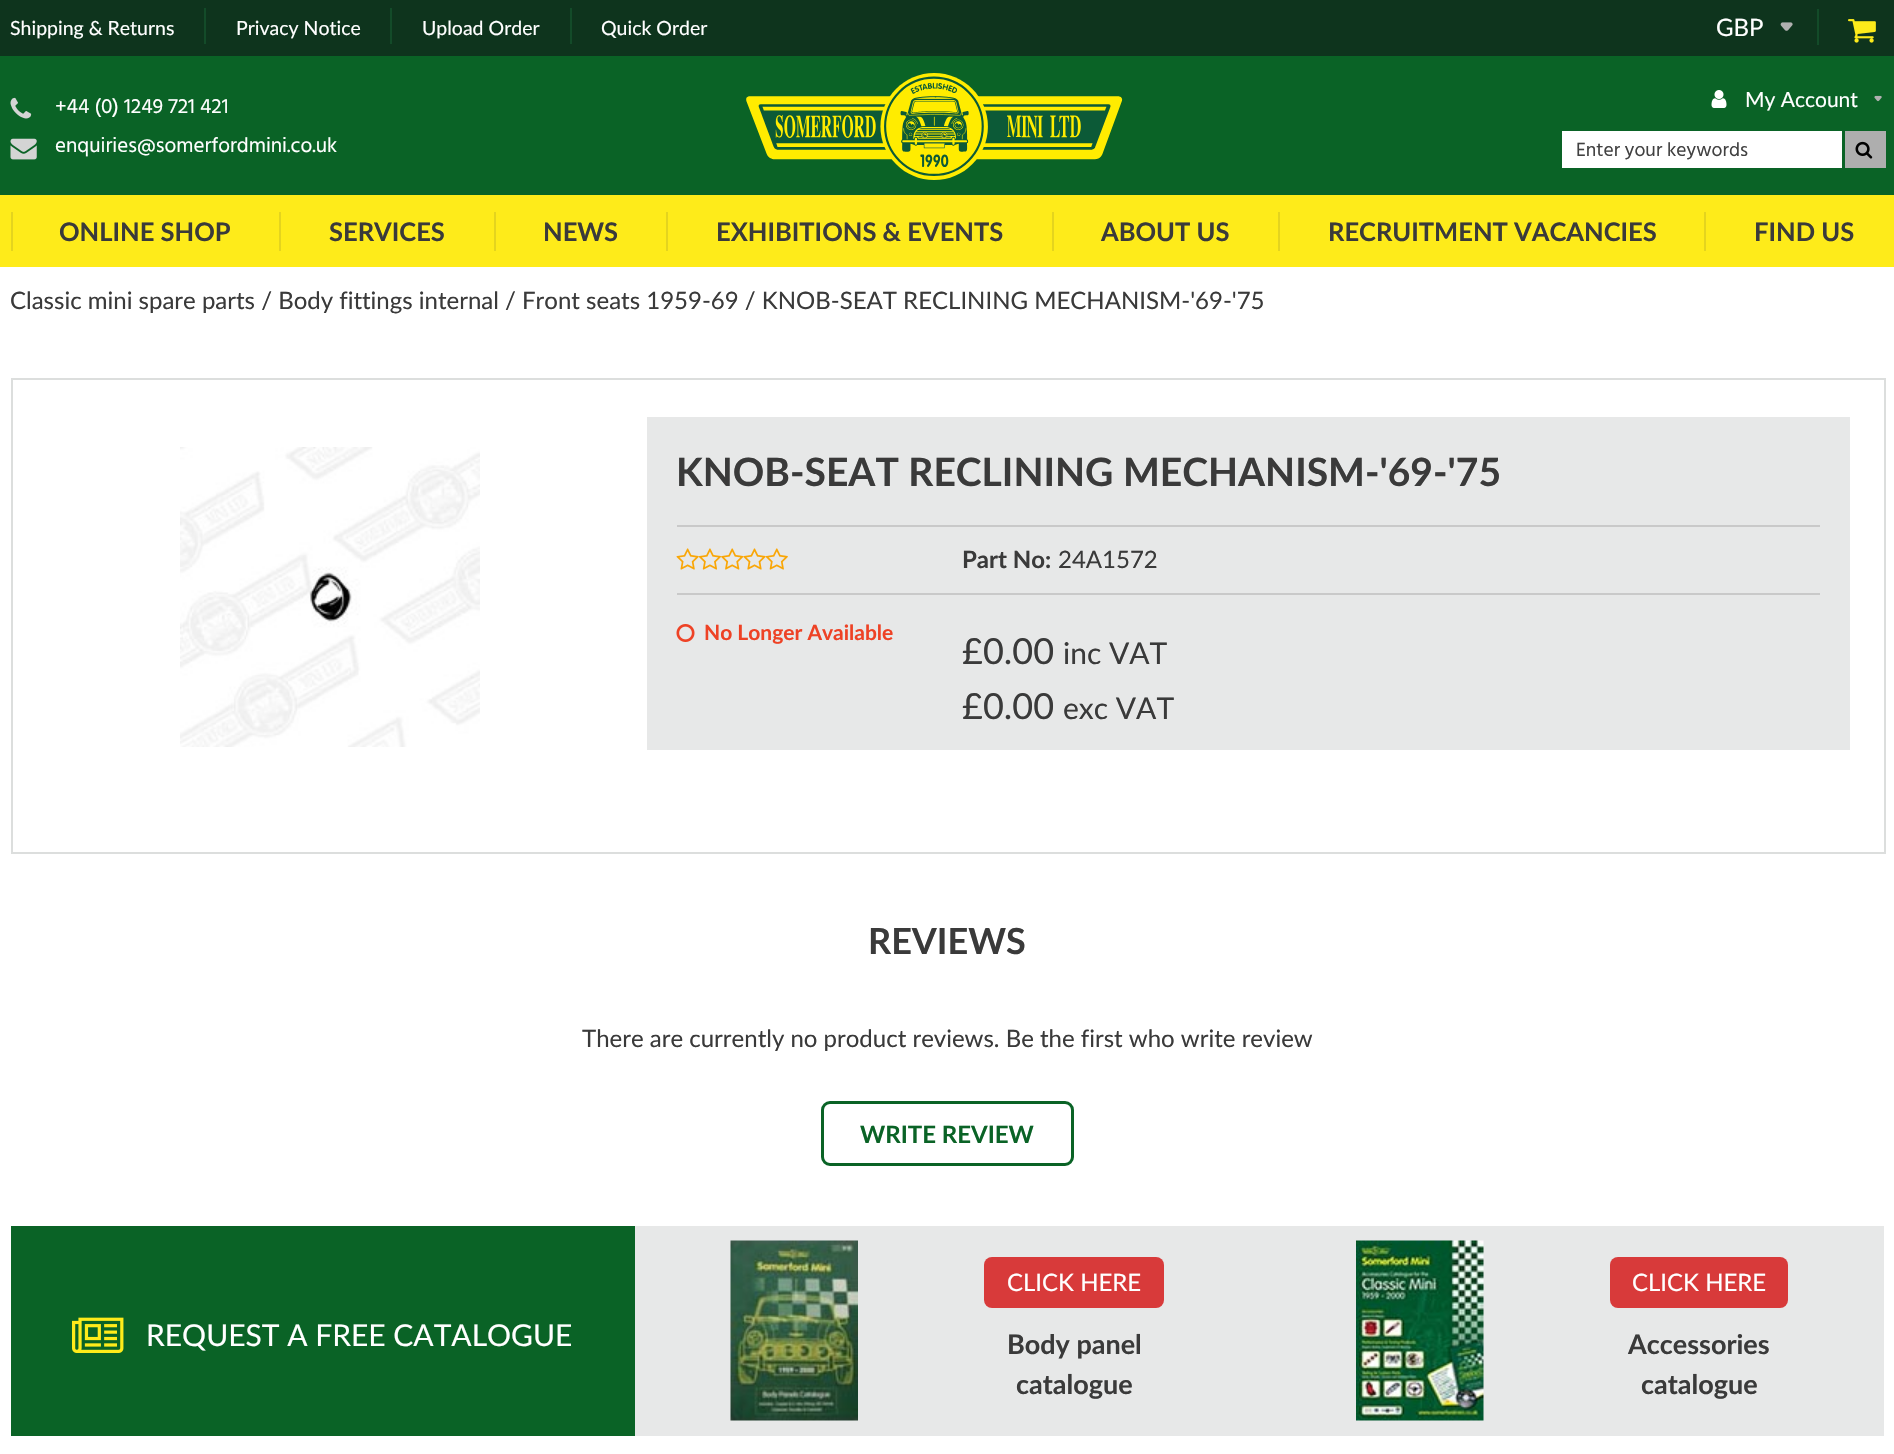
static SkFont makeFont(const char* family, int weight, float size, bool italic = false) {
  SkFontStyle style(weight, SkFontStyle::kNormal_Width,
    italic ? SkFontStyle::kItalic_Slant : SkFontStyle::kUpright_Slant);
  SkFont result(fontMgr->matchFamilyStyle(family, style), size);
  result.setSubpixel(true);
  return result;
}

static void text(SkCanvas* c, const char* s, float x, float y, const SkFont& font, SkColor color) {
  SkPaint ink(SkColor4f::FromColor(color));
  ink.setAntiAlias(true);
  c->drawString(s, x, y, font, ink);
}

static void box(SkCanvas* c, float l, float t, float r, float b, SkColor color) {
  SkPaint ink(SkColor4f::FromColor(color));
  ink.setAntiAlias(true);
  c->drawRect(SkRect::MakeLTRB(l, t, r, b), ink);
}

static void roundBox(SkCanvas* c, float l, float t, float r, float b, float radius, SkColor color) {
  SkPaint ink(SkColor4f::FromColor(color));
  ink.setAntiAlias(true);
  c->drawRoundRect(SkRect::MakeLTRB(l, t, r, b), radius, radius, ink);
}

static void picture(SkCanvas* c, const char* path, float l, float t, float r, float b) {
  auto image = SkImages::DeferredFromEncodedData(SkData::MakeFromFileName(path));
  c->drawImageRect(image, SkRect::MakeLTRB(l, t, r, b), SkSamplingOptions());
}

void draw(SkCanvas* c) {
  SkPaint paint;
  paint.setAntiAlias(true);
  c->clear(0xffffffff);
  box(c, 0, 0, 1894, 56, 0xff0e341d);
  box(c, 204, 8, 206, 44, 0xff134b29);
  SkFont face1 = makeFont("Lato", 400, 19.5f);
  text(c, "Shipping & Returns", 10, 35, face1, 0xffffffff);
  box(c, 390, 8, 392, 44, 0xff134b29);
  text(c, "Privacy Notice", 236, 35, face1, 0xffffffff);
  box(c, 570, 8, 572, 44, 0xff134b29);
  text(c, "Upload Order", 422, 35, face1, 0xffffffff);
  text(c, "Quick Order", 601, 35, face1, 0xffffffff);
  box(c, 1817, 9, 1819, 45, 0xff134b29);
  SkFont face2 = makeFont("Lato", 400, 24);
  text(c, "GBP", 1716, 36, face2, 0xffffffff);
  picture(c, "img_01.png", 1780, 22, 1793, 31);
  picture(c, "img_02.png", 1848, 19, 1876, 43);
  box(c, 0, 56, 1894, 195, 0xff0a6326);
  picture(c, "img_03.png", 10, 97, 32, 119);
  SkFont face3 = makeFont("Hind", 400, 21);
  text(c, "+44 (0) 1249 721 421", 55, 113, face3, 0xffffffff);
  picture(c, "img_04.png", 10, 138, 37, 160);
  text(c, "enquiries@somerfordmini.co.uk", 55, 152, face3, 0xffffffff);
  picture(c, "img_05.png", 746, 73, 1123, 180);
  picture(c, "img_06.png", 1711, 90, 1727, 108);
  SkFont face4 = makeFont("Lato", 400, 21);
  text(c, "My Account", 1745, 107, face4, 0xffffffff);
  picture(c, "img_07.png", 1874, 95, 1882, 102);
  box(c, 1562, 131, 1842, 168, 0xffffffff);
  SkFont face5 = makeFont("Hind", 400, 19.5f);
  text(c, "Enter your keywords", 1576, 156, face5, 0xff414141);
  box(c, 1845, 131, 1886, 168, 0xffaeaeae);
  picture(c, "img_08.png", 1855, 141, 1873, 159);
  box(c, 0, 195, 1894, 267, 0xfffeeb1a);
  box(c, 279, 212, 281, 251, 0xffe4d41e);
  box(c, 11, 212, 13, 251, 0xffe4d41e);
  SkFont face6 = makeFont("Lato", 700, 25.5f);
  text(c, "ONLINE SHOP", 59, 241, face6, 0xff3a3a3a);
  box(c, 494, 212, 496, 251, 0xffe4d41e);
  text(c, "SERVICES", 329, 241, face6, 0xff3a3a3a);
  box(c, 666, 212, 668, 251, 0xffe4d41e);
  text(c, "NEWS", 543, 241, face6, 0xff3a3a3a);
  box(c, 1052, 212, 1054, 251, 0xffe4d41e);
  text(c, "EXHIBITIONS & EVENTS", 716, 241, face6, 0xff3a3a3a);
  box(c, 1278, 212, 1280, 251, 0xffe4d41e);
  text(c, "ABOUT US", 1101, 241, face6, 0xff3a3a3a);
  box(c, 1704, 212, 1706, 251, 0xffe4d41e);
  text(c, "RECRUITMENT VACANCIES", 1328, 241, face6, 0xff3a3a3a);
  text(c, "FIND US", 1754, 241, face6, 0xff3a3a3a);
  text(c, "Classic mini spare parts / Body fittings internal / Front seats 1959-69 / KNOB-SEAT RECLINING MECHANISM-'69-'75", 10, 309, face2, 0xff3a3a3a);
  paint.setStyle(SkPaint::kStroke_Style);
  paint.setStrokeWidth(2);
  paint.setColor(0xffdcdedd);
  c->drawRect(SkRect::MakeLTRB(12, 379, 1885, 853), paint);
  picture(c, "img_09.png", 180, 447, 480, 747);
  box(c, 647, 417, 1850, 750, 0xffe7e8e8);
  SkFont face7 = makeFont("Lato", 700, 39);
  text(c, "KNOB-SEAT RECLINING MECHANISM-'69-'75", 676, 486, face7, 0xff3a3a3a);
  box(c, 677, 525, 1820, 527, 0xffc9c9c9);
  box(c, 677, 593, 1820, 595, 0xffc9c9c9);
  picture(c, "img_10.png", 676, 548, 788, 570);
  SkFont face8 = makeFont("Lato", 700, 24);
  text(c, "Part No:", 962, 568, face8, 0xff3a3a3a);
  text(c, "24A1572", 1058, 568, face2, 0xff3a3a3a);
  picture(c, "img_11.png", 676, 624, 695, 642);
  SkFont face9 = makeFont("Lato", 700, 21);
  text(c, "No Longer Available", 704, 640, face9, 0xffee4225);
  SkFont face10 = makeFont("Lato", 400, 36);
  text(c, "£0.00", 962, 664, face10, 0xff3a3a3a);
  SkFont face11 = makeFont("Lato", 400, 30);
  text(c, "inc VAT", 1063, 664, face11, 0xff3a3a3a);
  text(c, "£0.00", 962, 719, face10, 0xff3a3a3a);
  text(c, "exc VAT", 1063, 719, face11, 0xff3a3a3a);
  SkFont face12 = makeFont("Lato", 700, 36);
  text(c, "REVIEWS", 868, 954, face12, 0xff3a3a3a);
  text(c, "There are currently no product reviews. Be the first who write review", 582, 1047, face2, 0xff3a3a3a);
  paint.setStrokeWidth(3);
  paint.setColor(0xff0a6326);
  c->drawRoundRect(SkRect::MakeLTRB(822.5f, 1102.5f, 1072.5f, 1164.5f), 7.5f, 7.5f, paint);
  text(c, "WRITE REVIEW", 860, 1143, face8, 0xff0a6326);
  box(c, 11, 1226, 635, 1436, 0xff0a6326);
  picture(c, "img_12.png", 72, 1317, 124, 1353);
  text(c, "REQUEST A FREE CATALOGUE", 146, 1346, face11, 0xffffffff);
  box(c, 635, 1226, 1884, 1436, 0xffe7e8e8);
  picture(c, "img_13.png", 730, 1240, 858, 1421);
  roundBox(c, 984, 1257, 1164, 1308, 8, 0xffd83a3a);
  text(c, "CLICK HERE", 1007, 1291, face2, 0xffffffff);
  SkFont face13 = makeFont("Lato", 700, 27);
  text(c, "Body panel", 1007, 1354, face13, 0xff3a3a3a);
  text(c, "catalogue", 1016, 1394, face13, 0xff3a3a3a);
  picture(c, "img_14.png", 1356, 1240, 1484, 1421);
  roundBox(c, 1610, 1257, 1788, 1308, 8, 0xffd83a3a);
  text(c, "CLICK HERE", 1632, 1291, face2, 0xffffffff);
  text(c, "Accessories", 1628, 1354, face13, 0xff3a3a3a);
  text(c, "catalogue", 1641, 1394, face13, 0xff3a3a3a);
}
